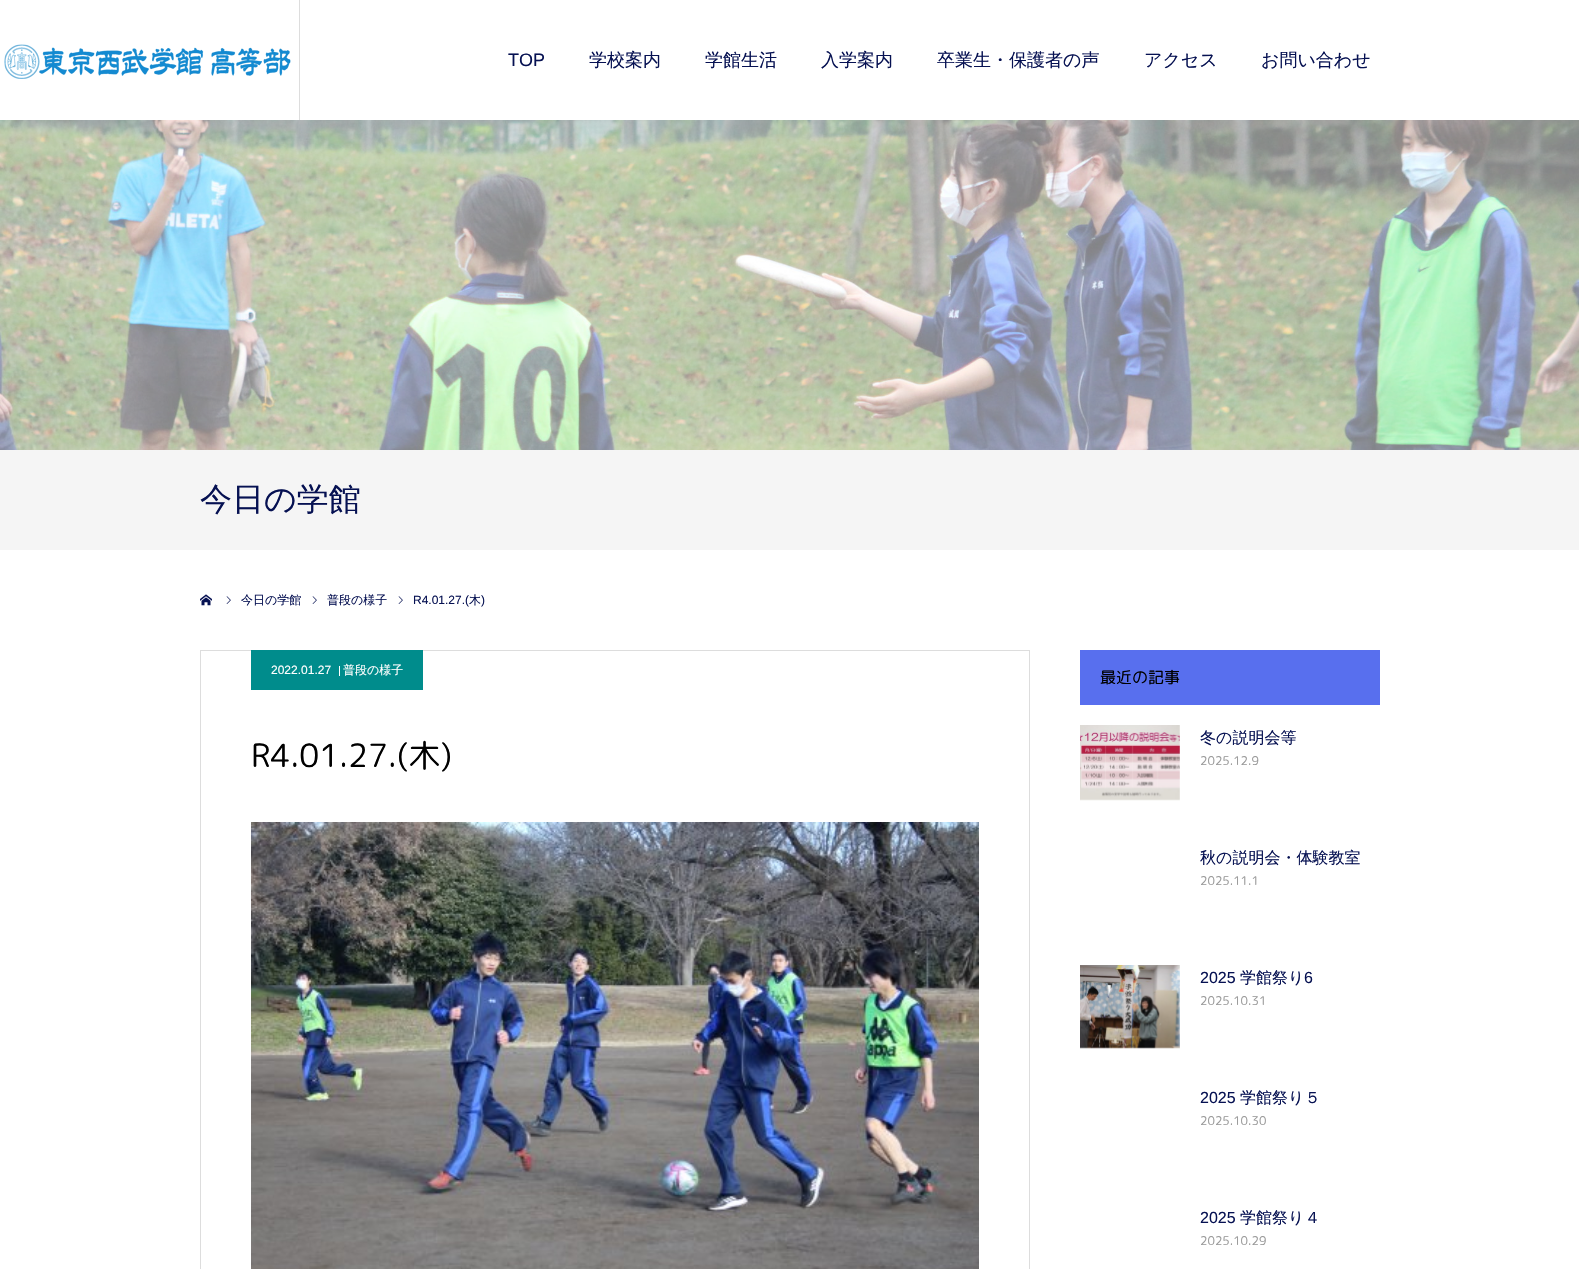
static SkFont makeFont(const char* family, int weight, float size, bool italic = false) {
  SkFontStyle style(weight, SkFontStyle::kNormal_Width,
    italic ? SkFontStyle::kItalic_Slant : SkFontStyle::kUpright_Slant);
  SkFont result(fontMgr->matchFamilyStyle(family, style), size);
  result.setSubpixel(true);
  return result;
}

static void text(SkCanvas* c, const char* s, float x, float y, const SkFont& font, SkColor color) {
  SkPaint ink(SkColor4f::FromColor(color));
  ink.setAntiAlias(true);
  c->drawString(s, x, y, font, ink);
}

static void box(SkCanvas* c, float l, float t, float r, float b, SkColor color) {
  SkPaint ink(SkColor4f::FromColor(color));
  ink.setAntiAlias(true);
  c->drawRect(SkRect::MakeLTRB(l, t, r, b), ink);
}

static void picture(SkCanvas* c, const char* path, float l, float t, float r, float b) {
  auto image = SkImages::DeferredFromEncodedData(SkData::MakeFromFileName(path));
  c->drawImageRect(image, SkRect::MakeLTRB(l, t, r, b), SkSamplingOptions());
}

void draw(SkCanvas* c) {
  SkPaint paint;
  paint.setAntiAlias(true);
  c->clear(0xffffffff);
  box(c, 299, 0, 300, 120, 0xffdddddd);
  picture(c, "img_01.png", 4, 44, 291, 79);
  SkFont face1 = makeFont("Liberation Sans", 400, 18);
  text(c, "TOP", 508, 66, face1, 0xff061152);
  SkFont face2 = makeFont("WenQuanYi Zen Hei", 500, 18);
  text(c, "学校案内", 589, 66, face2, 0xff061152);
  text(c, "学館生活", 705, 66, face2, 0xff061152);
  text(c, "入学案内", 821, 66, face2, 0xff061152);
  text(c, "卒業生・保護者の声", 937, 66, face2, 0xff061152);
  text(c, "アクセス", 1144, 66, face2, 0xff061152);
  text(c, "お問い合わせ", 1261, 66, face2, 0xff061152);
  picture(c, "img_02.png", 0, 120, 1579, 450);
  box(c, 0, 450, 1579, 550, 0xfff5f5f5);
  SkFont face3 = makeFont("WenQuanYi Zen Hei", 500, 32);
  text(c, "今日の学館", 200, 510, face3, 0xff061152);
  picture(c, "img_03.png", 200, 594, 212, 606);
  picture(c, "img_04.png", 226, 596, 231, 604);
  SkFont face4 = makeFont("WenQuanYi Zen Hei", 500, 12);
  text(c, "今日の学館", 241, 604, face4, 0xff061152);
  picture(c, "img_04.png", 312, 596, 317, 604);
  text(c, "普段の様子", 327, 604, face4, 0xff061152);
  picture(c, "img_04.png", 398, 596, 403, 604);
  SkFont face5 = makeFont("Liberation Sans", 400, 12);
  text(c, "R4.01.27.(", 413, 604, face5, 0xff061152);
  text(c, "木", 469, 604, face4, 0xff061152);
  text(c, ")", 481, 604, face5, 0xff061152);
  paint.setStyle(SkPaint::kStroke_Style);
  paint.setStrokeWidth(1);
  paint.setColor(0xffdddddd);
  c->drawRect(SkRect::MakeLTRB(200.5f, 650.5f, 1029.5f, 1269.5f), paint);
  box(c, 251, 650, 423, 690, 0xff008c8c);
  text(c, "2022.01.27", 271, 674, face5, 0xffffffff);
  box(c, 339, 666, 340, 676, 0xffffffff);
  text(c, "普段の様子", 343, 674, face4, 0xffffffff);
  SkFont face6 = makeFont("Rounded Mplus 1c", 400, 32);
  text(c, "R4.01.27.(木)", 251, 767, face6, 0xff000000);
  picture(c, "img_05.png", 251, 822, 979, 1269);
  box(c, 1080, 650, 1380, 705, 0xff586fee);
  SkFont face7 = makeFont("Rounded Mplus 1c", 400, 16);
  text(c, "最近の記事", 1100, 683, face7, 0xff000000);
  picture(c, "img_06.png", 1080, 725, 1180, 801);
  SkFont face8 = makeFont("WenQuanYi Zen Hei", 500, 16);
  text(c, "冬の説明会等", 1200, 743, face8, 0xff061152);
  SkFont face9 = makeFont("Rounded Mplus 1c", 400, 12);
  text(c, "2025.12.9", 1200, 765, face9, 0xff999999);
  text(c, "秋の説明会・体験教室", 1200, 863, face8, 0xff061152);
  text(c, "2025.11.1", 1200, 885, face9, 0xff999999);
  picture(c, "img_07.png", 1080, 965, 1180, 1049);
  SkFont face10 = makeFont("Liberation Sans", 400, 16);
  text(c, "2025", 1200, 983, face10, 0xff061152);
  text(c, "学館祭り", 1240, 983, face8, 0xff061152);
  text(c, "6", 1304, 983, face10, 0xff061152);
  text(c, "2025.10.31", 1200, 1005, face9, 0xff999999);
  text(c, "2025", 1200, 1103, face10, 0xff061152);
  text(c, "学館祭り５", 1240, 1103, face8, 0xff061152);
  text(c, "2025.10.30", 1200, 1125, face9, 0xff999999);
  text(c, "2025", 1200, 1223, face10, 0xff061152);
  text(c, "学館祭り４", 1240, 1223, face8, 0xff061152);
  text(c, "2025.10.29", 1200, 1245, face9, 0xff999999);
}
